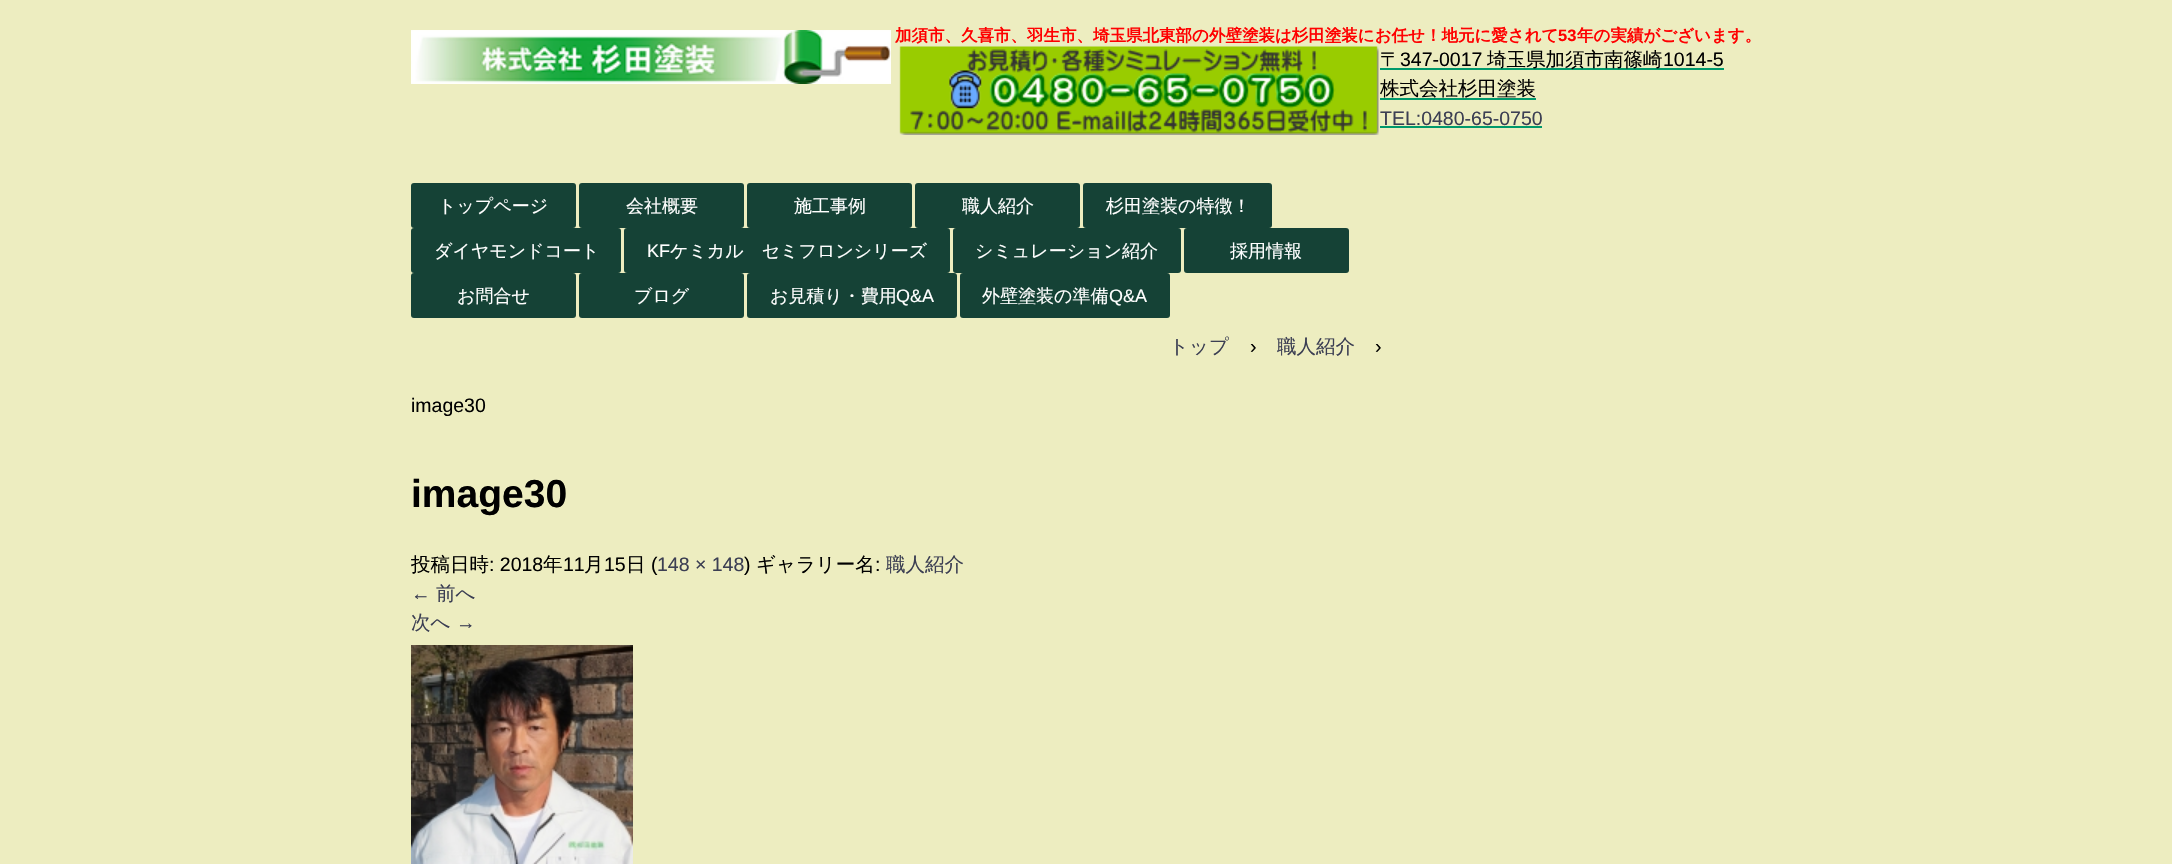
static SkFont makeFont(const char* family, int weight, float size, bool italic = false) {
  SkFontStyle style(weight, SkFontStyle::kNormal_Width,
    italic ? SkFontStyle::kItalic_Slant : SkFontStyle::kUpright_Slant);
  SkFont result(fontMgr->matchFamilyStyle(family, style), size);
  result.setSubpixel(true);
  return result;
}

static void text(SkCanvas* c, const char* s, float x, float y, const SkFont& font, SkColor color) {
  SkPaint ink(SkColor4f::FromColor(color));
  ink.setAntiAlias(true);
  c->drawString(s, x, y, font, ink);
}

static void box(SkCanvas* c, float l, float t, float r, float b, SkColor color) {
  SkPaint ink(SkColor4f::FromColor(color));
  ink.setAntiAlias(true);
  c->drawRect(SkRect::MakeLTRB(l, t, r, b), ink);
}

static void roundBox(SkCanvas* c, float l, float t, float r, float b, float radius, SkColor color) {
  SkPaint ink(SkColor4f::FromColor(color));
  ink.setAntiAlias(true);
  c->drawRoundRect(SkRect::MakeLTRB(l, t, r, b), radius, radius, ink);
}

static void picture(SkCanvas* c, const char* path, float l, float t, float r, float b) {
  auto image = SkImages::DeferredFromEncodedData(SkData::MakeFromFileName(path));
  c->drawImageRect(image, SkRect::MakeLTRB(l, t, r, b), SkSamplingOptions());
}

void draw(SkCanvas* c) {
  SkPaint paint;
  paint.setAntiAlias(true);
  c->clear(0xffededc0);
  picture(c, "img_01.png", 411, 30, 891, 84);
  SkFont face1 = makeFont("WenQuanYi Zen Hei", 700, 16.5f);
  text(c, "加須市、久喜市、羽生市、埼玉県北東部の外壁塗装は杉田塗装にお任せ！地元に愛されて", 895, 41, face1, 0xffff0000);
  SkFont face2 = makeFont("Liberation Sans", 700, 16.5f);
  text(c, "53", 1558, 41, face2, 0xffff0000);
  text(c, "年の実績がございます。", 1577, 41, face1, 0xffff0000);
  picture(c, "img_02.png", 899, 45, 1379, 135);
  SkFont face3 = makeFont("WenQuanYi Zen Hei", 500, 19.5f);
  text(c, "〒", 1380, 66, face3, 0xff000000);
  box(c, 1380, 68, 1724, 70, 0xff00996b);
  SkFont face4 = makeFont("Liberation Sans", 400, 19.5f);
  text(c, "347-0017", 1400, 66, face4, 0xff000000);
  text(c, "埼玉県加須市南篠崎", 1487, 66, face3, 0xff000000);
  text(c, "1014-5", 1663, 66, face4, 0xff000000);
  text(c, "株式会社杉田塗装", 1380, 95, face3, 0xff000000);
  box(c, 1380, 98, 1536, 100, 0xff00996b);
  text(c, "TEL:0480-65-0750", 1380, 125, face4, 0xff3c3f53);
  box(c, 1380, 126, 1542, 128, 0xff00996b);
  roundBox(c, 411, 183, 576, 228, 3, 0xff154236);
  SkFont face5 = makeFont("WenQuanYi Zen Hei", 500, 18);
  text(c, "トップページ", 438, 212, face5, 0xffffffff);
  roundBox(c, 579, 183, 744, 228, 3, 0xff154236);
  text(c, "会社概要", 626, 212, face5, 0xffffffff);
  roundBox(c, 747, 183, 912, 228, 3, 0xff154236);
  text(c, "施工事例", 794, 212, face5, 0xffffffff);
  roundBox(c, 915, 183, 1080, 228, 3, 0xff154236);
  text(c, "職人紹介", 962, 212, face5, 0xffffffff);
  roundBox(c, 1083, 183, 1272, 228, 3, 0xff154236);
  text(c, "杉田塗装の特徴！", 1106, 212, face5, 0xffffffff);
  roundBox(c, 411, 228, 621, 273, 3, 0xff154236);
  text(c, "ダイヤモンドコート", 434, 257, face5, 0xffffffff);
  roundBox(c, 624, 228, 950, 273, 3, 0xff154236);
  SkFont face6 = makeFont("Liberation Sans", 400, 18);
  text(c, "KF", 647, 257, face6, 0xffffffff);
  text(c, "ケミカル　セミフロンシリーズ", 670, 257, face5, 0xffffffff);
  roundBox(c, 953, 228, 1181, 273, 3, 0xff154236);
  text(c, "シミュレーション紹介", 975, 257, face5, 0xffffffff);
  roundBox(c, 1184, 228, 1349, 273, 3, 0xff154236);
  text(c, "採用情報", 1230, 257, face5, 0xffffffff);
  roundBox(c, 411, 273, 576, 318, 3, 0xff154236);
  text(c, "お問合せ", 457, 302, face5, 0xffffffff);
  roundBox(c, 579, 273, 744, 318, 3, 0xff154236);
  text(c, "ブログ", 634, 302, face5, 0xffffffff);
  roundBox(c, 747, 273, 957, 318, 3, 0xff154236);
  text(c, "お見積り・費用", 770, 302, face5, 0xffffffff);
  text(c, "Q&A", 896, 302, face6, 0xffffffff);
  roundBox(c, 960, 273, 1170, 318, 3, 0xff154236);
  text(c, "外壁塗装の準備", 982, 302, face5, 0xffffffff);
  text(c, "Q&A", 1109, 302, face6, 0xffffffff);
  text(c, "トップ", 1169, 353, face3, 0xff3c3f53);
  text(c, "›", 1250, 353, face4, 0xff000000);
  text(c, "職人紹介", 1277, 353, face3, 0xff3c3f53);
  text(c, "›", 1375, 353, face4, 0xff000000);
  text(c, "image30", 411, 412, face4, 0xff000000);
  SkFont face7 = makeFont("Liberation Sans", 700, 39);
  text(c, "image30", 411, 507, face7, 0xff000000);
  text(c, "投稿日時", 411, 571, face3, 0xff000000);
  text(c, ": 2018", 489, 571, face4, 0xff000000);
  text(c, "年", 543, 571, face3, 0xff000000);
  text(c, "11", 563, 571, face4, 0xff000000);
  text(c, "月", 584, 571, face3, 0xff000000);
  text(c, "15", 604, 571, face4, 0xff000000);
  text(c, "日", 626, 571, face3, 0xff000000);
  text(c, "(", 651, 571, face4, 0xff000000);
  text(c, "148 × 148", 657, 571, face4, 0xff3c3f53);
  text(c, ")", 744, 571, face4, 0xff000000);
  text(c, "ギャラリー名", 756, 571, face3, 0xff000000);
  text(c, ":", 875, 571, face4, 0xff000000);
  text(c, "職人紹介", 886, 571, face3, 0xff3c3f53);
  text(c, "←", 411, 600, face4, 0xff3c3f53);
  text(c, "前へ", 436, 600, face3, 0xff3c3f53);
  text(c, "次へ", 411, 629, face3, 0xff3c3f53);
  text(c, "→", 456, 629, face4, 0xff3c3f53);
  picture(c, "img_03.png", 411, 645, 633, 864);
}
